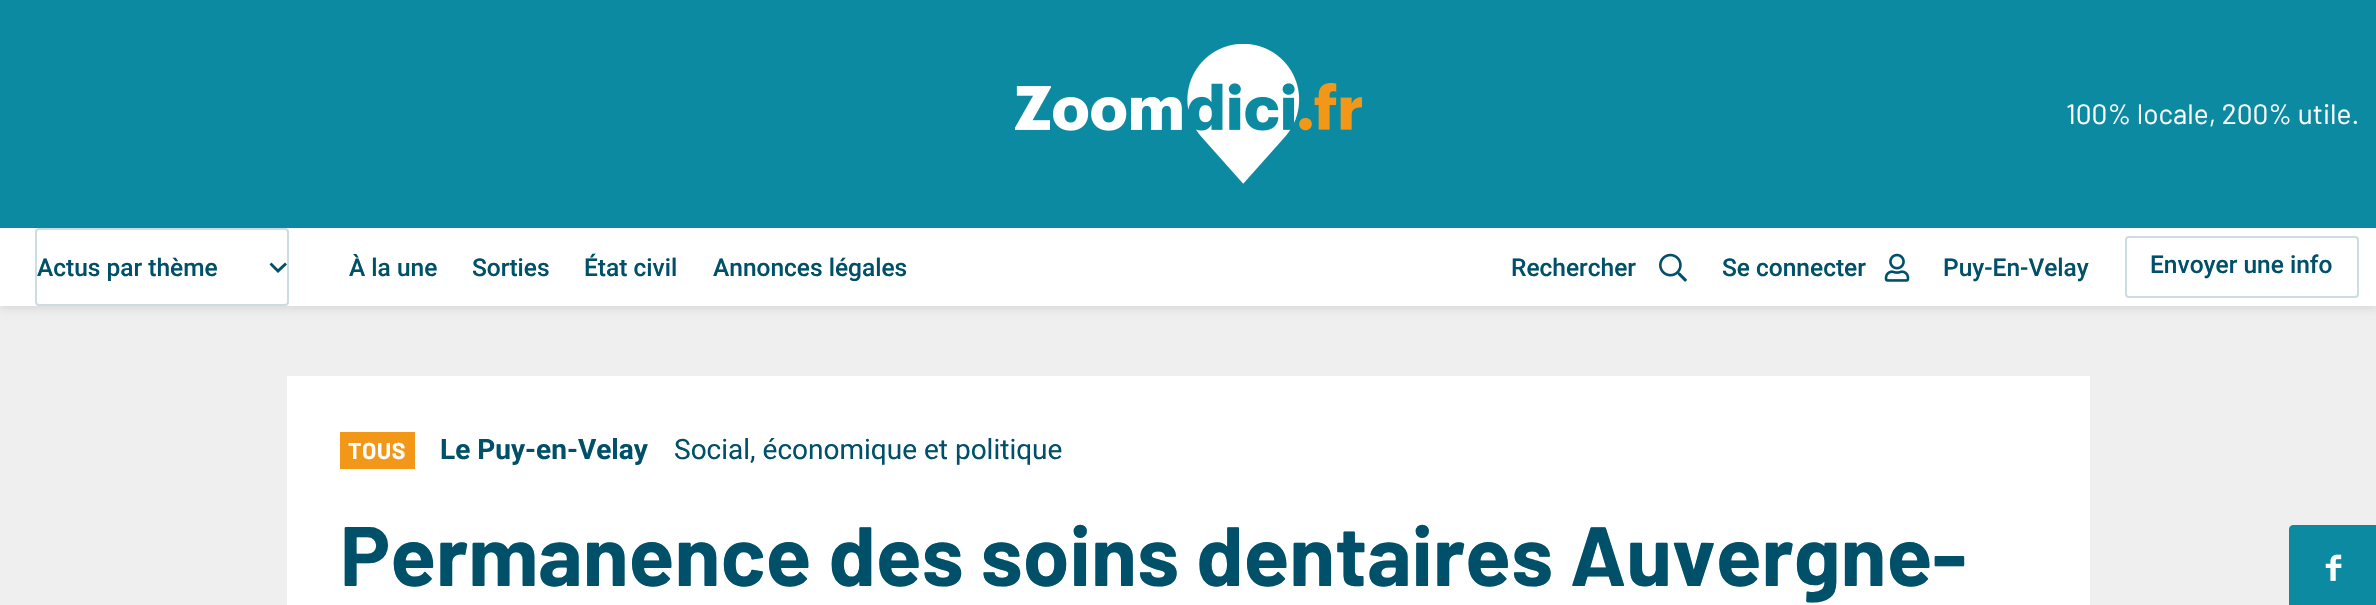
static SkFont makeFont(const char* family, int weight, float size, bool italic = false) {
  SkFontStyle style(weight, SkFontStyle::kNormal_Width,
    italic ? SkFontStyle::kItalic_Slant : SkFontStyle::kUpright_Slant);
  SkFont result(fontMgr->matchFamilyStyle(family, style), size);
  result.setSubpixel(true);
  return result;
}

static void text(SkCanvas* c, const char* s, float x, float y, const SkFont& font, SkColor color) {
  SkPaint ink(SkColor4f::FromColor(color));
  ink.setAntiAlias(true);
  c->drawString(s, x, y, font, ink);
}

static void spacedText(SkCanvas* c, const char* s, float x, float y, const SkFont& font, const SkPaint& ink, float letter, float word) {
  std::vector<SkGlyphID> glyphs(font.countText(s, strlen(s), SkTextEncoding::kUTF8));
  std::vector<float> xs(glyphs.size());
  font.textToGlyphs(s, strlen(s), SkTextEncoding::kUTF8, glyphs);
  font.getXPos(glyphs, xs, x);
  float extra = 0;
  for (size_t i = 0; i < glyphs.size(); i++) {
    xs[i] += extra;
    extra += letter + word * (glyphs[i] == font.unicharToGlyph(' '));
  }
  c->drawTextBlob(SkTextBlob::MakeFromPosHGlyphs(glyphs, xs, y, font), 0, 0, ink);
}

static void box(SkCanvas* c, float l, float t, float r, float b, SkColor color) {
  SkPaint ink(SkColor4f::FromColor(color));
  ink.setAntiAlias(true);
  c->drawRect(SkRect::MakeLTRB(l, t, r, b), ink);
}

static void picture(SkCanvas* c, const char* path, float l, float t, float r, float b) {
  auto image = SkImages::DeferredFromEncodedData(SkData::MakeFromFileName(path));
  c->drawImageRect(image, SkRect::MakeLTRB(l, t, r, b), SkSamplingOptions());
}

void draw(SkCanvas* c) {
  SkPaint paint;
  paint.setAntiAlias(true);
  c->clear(0xffefefef);
  box(c, 0, 0, 2376, 228, 0xff0c8aa2);
  picture(c, "img_01.png", 1015, 44, 1362, 184);
  SkFont face1 = makeFont("Barlow", 400, 28);
  text(c, "100% locale, 200% utile.", 2066, 124, face1, 0xffffffff);
  paint.setColor(0x14000000);
  paint.setMaskFilter(SkMaskFilter::MakeBlur(kNormal_SkBlurStyle, 3.5f));
  c->drawRect(SkRect::MakeLTRB(0, 231, 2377, 310), paint);
  paint.setMaskFilter(nullptr);
  box(c, 0, 228, 2376, 306, 0xffffffff);
  paint.setColor(0xff005069);
  c->drawPath(SkPathBuilder().moveTo(271.5f, 262.5f).lineTo(278, 269).lineTo(285, 262.5f).lineTo(287, 264.5f).lineTo(278, 273).lineTo(269.5f, 264.5f).close().detach(), paint);
  paint.setStyle(SkPaint::kStroke_Style);
  paint.setStrokeWidth(2);
  paint.setColor(0xffccdce1);
  c->drawRoundRect(SkRect::MakeLTRB(36, 229, 288, 305), 3, 3, paint);
  SkFont face2 = makeFont("Roboto", 500, 24.5f);
  text(c, "Actus par thème", 37, 276, face2, 0xff005069);
  text(c, "À la une", 349, 276, face2, 0xff005069);
  text(c, "Sorties", 472, 276, face2, 0xff005069);
  text(c, "État civil", 584, 276, face2, 0xff005069);
  text(c, "Annonces légales", 713, 276, face2, 0xff005069);
  text(c, "Rechercher", 1511, 276, face2, 0xff005069);
  picture(c, "img_02.png", 1659, 253, 1687, 282);
  text(c, "Se connecter", 1722, 276, face2, 0xff005069);
  picture(c, "img_03.png", 1884, 253, 1910, 282);
  text(c, "Puy-En-Velay", 1943, 276, face2, 0xff005069);
  c->drawRoundRect(SkRect::MakeLTRB(2126, 237, 2358, 297), 3, 3, paint);
  text(c, "Envoyer une info", 2150, 273, face2, 0xff005069);
  box(c, 287, 376, 2090, 605, 0xffffffff);
  box(c, 340, 432, 415, 469, 0xfff29717);
  SkFont face3 = makeFont("Barlow", 700, 23);
  paint.setStyle(SkPaint::kFill_Style);
  paint.setColor(0xffffffff);
  spacedText(c, "TOUS", 348, 459, face3, paint, 0.5f, 0);
  SkFont face4 = makeFont("Roboto", 700, 28);
  text(c, "Le Puy-en-Velay", 440, 459, face4, 0xff005069);
  SkFont face5 = makeFont("Roboto", 400, 28);
  text(c, "Social, économique et politique", 674, 459, face5, 0xff005069);
  SkFont face6 = makeFont("Barlow", 700, 84);
  text(c, "Permanence des soins dentaires Auvergne-", 340, 586, face6, 0xff005069);
  paint.setColor(0xff0c8aa2);
  c->drawPath(SkPathBuilder().moveTo(2293, 525).lineTo(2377, 525).lineTo(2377, 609).lineTo(2289, 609).lineTo(2289, 529).cubicTo(2289, 527, 2291, 525, 2293, 525).close().detach(), paint);
  picture(c, "img_04.png", 2325, 554, 2342, 581);
}
